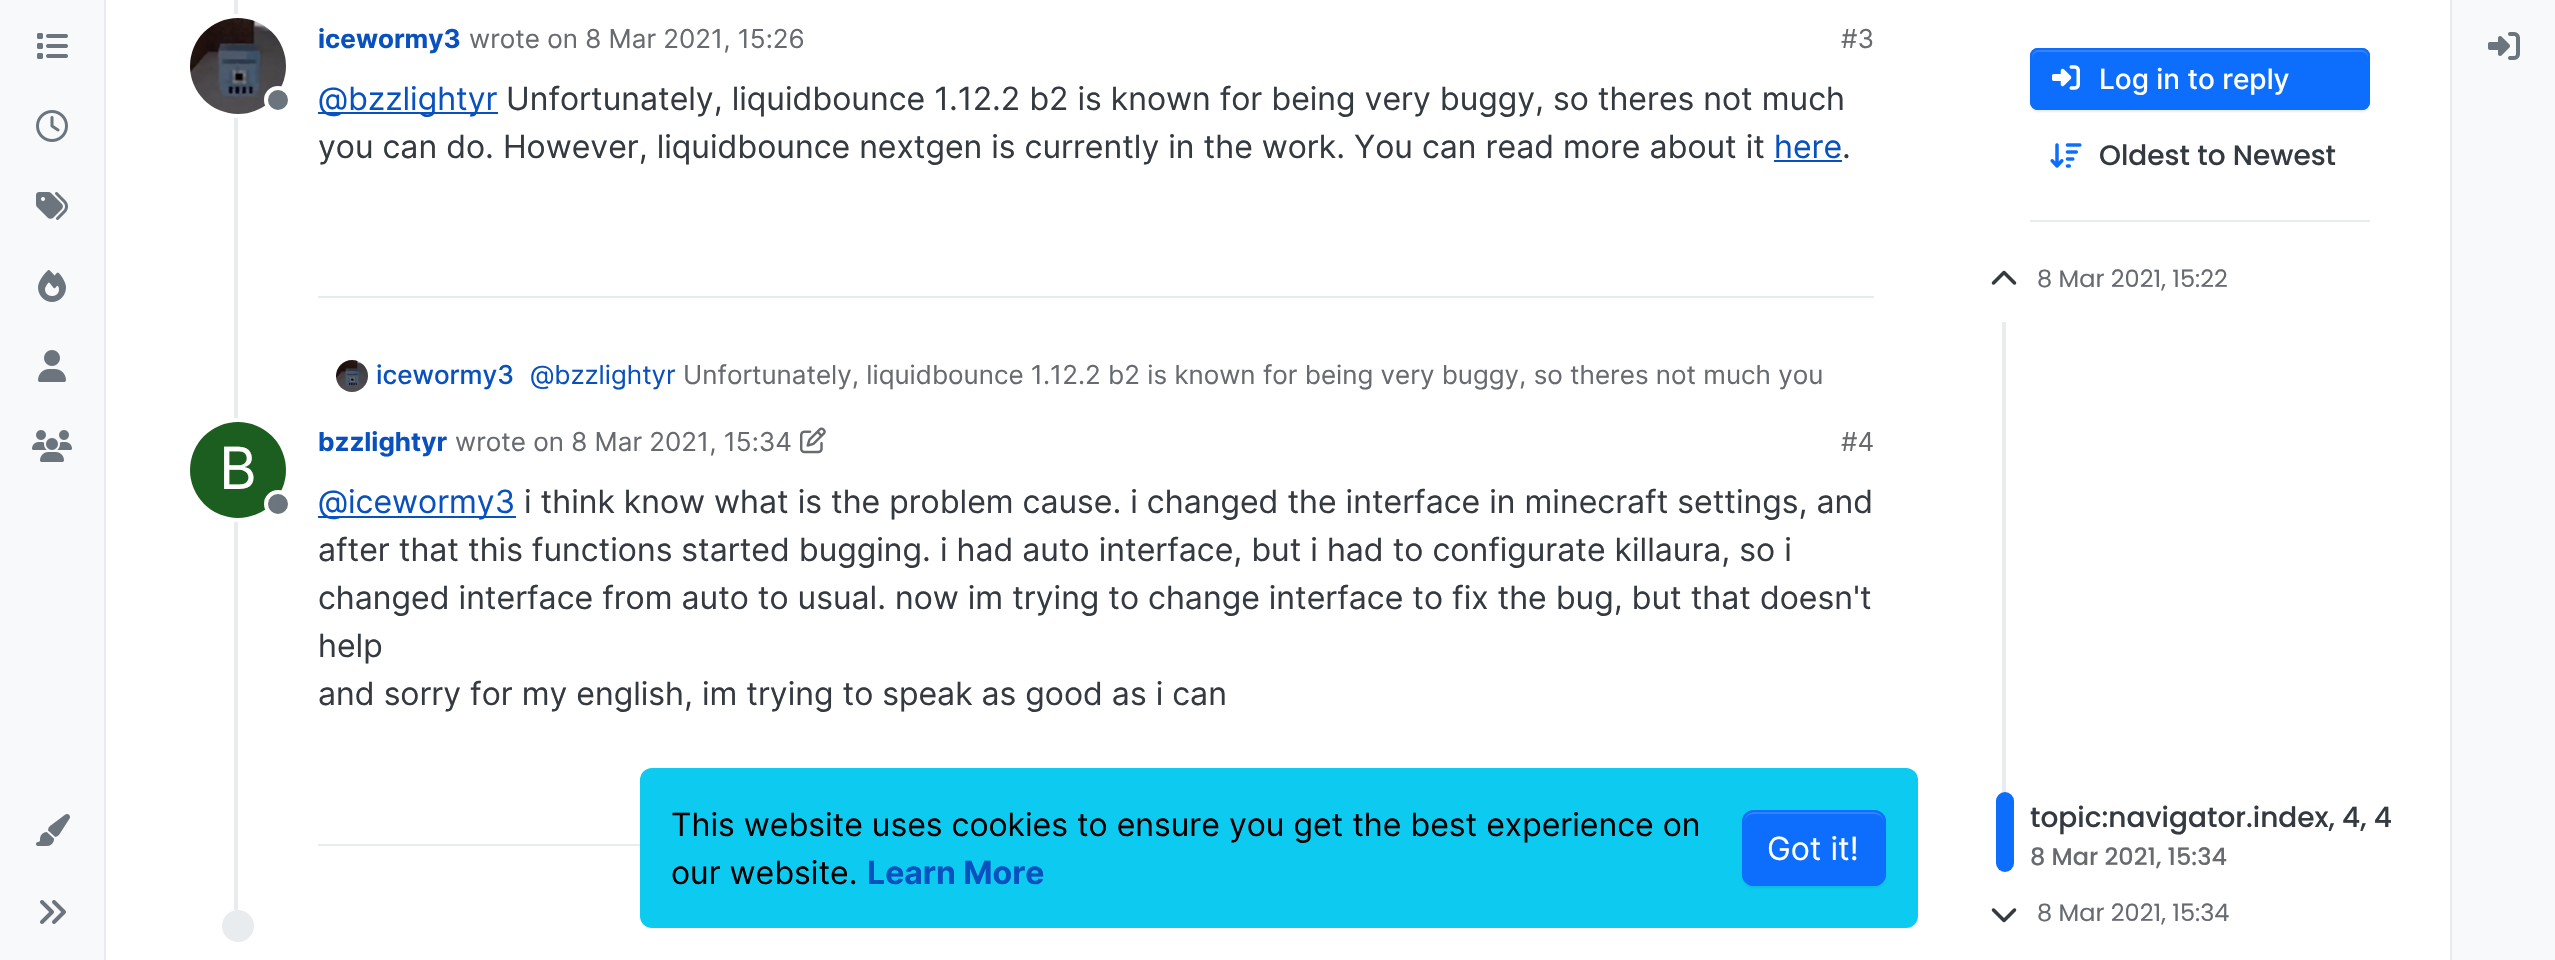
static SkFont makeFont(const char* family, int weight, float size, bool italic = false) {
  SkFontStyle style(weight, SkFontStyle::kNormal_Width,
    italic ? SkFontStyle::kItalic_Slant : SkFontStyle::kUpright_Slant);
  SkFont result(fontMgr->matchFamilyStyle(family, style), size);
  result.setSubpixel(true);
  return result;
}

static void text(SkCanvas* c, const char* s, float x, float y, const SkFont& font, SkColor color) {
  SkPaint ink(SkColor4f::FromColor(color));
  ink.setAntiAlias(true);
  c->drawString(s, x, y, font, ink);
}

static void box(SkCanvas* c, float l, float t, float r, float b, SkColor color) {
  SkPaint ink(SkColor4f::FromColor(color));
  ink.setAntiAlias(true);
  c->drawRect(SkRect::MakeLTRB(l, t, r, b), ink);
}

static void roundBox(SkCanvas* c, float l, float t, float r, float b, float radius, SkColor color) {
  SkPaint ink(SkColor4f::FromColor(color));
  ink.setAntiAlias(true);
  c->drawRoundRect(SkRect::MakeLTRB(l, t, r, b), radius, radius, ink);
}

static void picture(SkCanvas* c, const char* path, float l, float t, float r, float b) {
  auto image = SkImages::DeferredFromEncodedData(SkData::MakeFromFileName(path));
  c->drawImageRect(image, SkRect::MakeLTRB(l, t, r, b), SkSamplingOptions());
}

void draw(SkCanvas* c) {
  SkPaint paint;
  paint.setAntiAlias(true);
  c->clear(0xffffffff);
  box(c, 0, 0, 104, 960, 0xfff8f9fa);
  box(c, 104, 0, 106, 960, 0xffe9ecef);
  picture(c, "img_01.png", 37, 33, 68, 59);
  picture(c, "img_02.png", 36, 110, 68, 142);
  picture(c, "img_03.png", 36, 192, 68, 220);
  picture(c, "img_04.png", 38, 270, 66, 302);
  picture(c, "img_05.png", 38, 350, 66, 382);
  picture(c, "img_06.png", 32, 430, 72, 462);
  picture(c, "img_07.png", 36, 814, 70, 846);
  picture(c, "img_08.png", 40, 900, 66, 924);
  box(c, 234, 0, 238, 910, 0xffe9ecef);
  paint.setStyle(SkPaint::kStroke_Style);
  paint.setStrokeWidth(4);
  paint.setColor(0xffffffff);
  c->drawCircle(238, 66, 50, paint);
  picture(c, "img_09.png", 190, 18, 286, 114);
  paint.setStyle(SkPaint::kFill_Style);
  paint.setColor(0xff6c757d);
  c->drawCircle(278, 100, 12, paint);
  paint.setStyle(SkPaint::kStroke_Style);
  paint.setColor(0xffffffff);
  c->drawCircle(278, 100, 12, paint);
  SkFont face1 = makeFont("Inter", 700, 26);
  text(c, "icewormy3", 318, 48, face1, 0xff0951be);
  SkFont face2 = makeFont("Inter", 400, 26);
  text(c, "wrote on 8 Mar 2021, 15:26", 469, 48, face2, 0xff676b70);
  text(c, "#3", 1841, 48, face2, 0xff676b70);
  box(c, 318, 112, 498, 114, 0xff0951be);
  SkFont face3 = makeFont("Inter", 400, 32);
  text(c, "@bzzlightyr", 318, 110, face3, 0xff0951be);
  text(c, "Unfortunately, liquidbounce 1.12.2 b2 is known for being very buggy, so theres not much", 506, 110, face3, 0xff343a40);
  text(c, "you can do. However, liquidbounce nextgen is currently in the work. You can read more about it", 318, 158, face3, 0xff343a40);
  text(c, "here", 1774, 158, face3, 0xff0951be);
  box(c, 1774, 160, 1842, 162, 0xff0951be);
  text(c, ".", 1842, 158, face3, 0xff343a40);
  box(c, 318, 296, 1874, 298, 0xffe9ecef);
  picture(c, "img_10.png", 336, 360, 368, 392);
  SkFont face4 = makeFont("Inter", 500, 26);
  text(c, "icewormy3", 376, 384, face4, 0xff0951be);
  text(c, "@bzzlightyr", 530, 384, face2, 0xff0951be);
  text(c, "Unfortunately, liquidbounce 1.12.2 b2 is known for being very buggy, so theres not much you", 683, 384, face2, 0xff676b70);
  c->drawCircle(238, 470, 50, paint);
  paint.setStyle(SkPaint::kFill_Style);
  paint.setColor(0xff1b5e20);
  c->drawCircle(238, 470, 48, paint);
  SkFont face5 = makeFont("Inter", 400, 58);
  text(c, "B", 219, 489, face5, 0xffffffff);
  paint.setColor(0xff6c757d);
  c->drawCircle(278, 504, 12, paint);
  paint.setStyle(SkPaint::kStroke_Style);
  paint.setColor(0xffffffff);
  c->drawCircle(278, 504, 12, paint);
  text(c, "bzzlightyr", 318, 451, face1, 0xff0951be);
  text(c, "wrote on 8 Mar 2021, 15:34", 455, 451, face2, 0xff676b70);
  picture(c, "img_11.png", 800, 427, 826, 454);
  text(c, "#4", 1841, 451, face2, 0xff676b70);
  box(c, 318, 516, 516, 518, 0xff0951be);
  text(c, "@icewormy3", 318, 513, face3, 0xff0951be);
  text(c, "i think know what is the problem cause. i changed the interface in minecraft settings, and", 524, 513, face3, 0xff343a40);
  text(c, "after that this functions started bugging. i had auto interface, but i had to configurate killaura, so i", 318, 561, face3, 0xff343a40);
  text(c, "changed interface from auto to usual. now im trying to change interface to fix the bug, but that doesn't", 318, 609, face3, 0xff343a40);
  text(c, "help", 318, 657, face3, 0xff343a40);
  text(c, "and sorry for my english, im trying to speak as good as i can", 318, 705, face3, 0xff343a40);
  box(c, 318, 844, 640, 846, 0xffe9ecef);
  paint.setStyle(SkPaint::kFill_Style);
  paint.setColor(0xffe9ecef);
  c->drawCircle(238, 926, 16, paint);
  paint.setColor(0x12000000);
  paint.setMaskFilter(SkMaskFilter::MakeBlur(kNormal_SkBlurStyle, 1));
  c->drawRoundRect(SkRect::MakeLTRB(2030, 50, 2370, 112), 8, 8, paint);
  paint.setMaskFilter(nullptr);
  roundBox(c, 2030, 48, 2370, 110, 8, 0xff0d6efd);
  paint.setColor(0xff3184fd);
  c->drawPath(SkPathBuilder().moveTo(2038, 52).lineTo(2362, 52).cubicTo(2365, 52, 2368, 55, 2368, 58).lineTo(2368, 56).cubicTo(2368, 53, 2365, 50, 2362, 50).lineTo(2038, 50).cubicTo(2035, 50, 2032, 53, 2032, 56).lineTo(2032, 58).cubicTo(2032, 55, 2035, 52, 2038, 52).close().detach(), paint);
  paint.setStyle(SkPaint::kStroke_Style);
  paint.setStrokeWidth(2);
  paint.setColor(0xff0d6efd);
  c->drawRoundRect(SkRect::MakeLTRB(2031, 49, 2369, 109), 7, 7, paint);
  picture(c, "img_12.png", 2052, 65, 2080, 90);
  SkFont face6 = makeFont("Inter", 500, 28);
  text(c, "Log in to reply", 2099, 89, face6, 0xffffffff);
  picture(c, "img_13.png", 2050, 143, 2082, 168);
  SkFont face7 = makeFont("Poppins", 500, 28);
  text(c, "Oldest to Newest", 2099, 165, face7, 0xff343a40);
  box(c, 2030, 220, 2370, 222, 0xffe9ecef);
  picture(c, "img_14.png", 1991, 270, 2017, 285);
  SkFont face8 = makeFont("Poppins", 400, 24);
  text(c, "8 Mar 2021, 15:22", 2037, 287, face8, 0xff676b70);
  box(c, 2002, 322, 2006, 872, 0xffe9ecef);
  roundBox(c, 1996, 792, 2014, 872, 9, 0xff0d6efd);
  text(c, "topic:navigator.index, 4, 4", 2030, 827, face7, 0xff343a40);
  SkFont face9 = makeFont("Poppins", 500, 24);
  text(c, "8 Mar 2021, 15:34", 2030, 865, face9, 0xff676b70);
  picture(c, "img_15.png", 1991, 908, 2017, 923);
  text(c, "8 Mar 2021, 15:34", 2037, 921, face8, 0xff676b70);
  box(c, 2452, 0, 2555, 960, 0xfff8f9fa);
  box(c, 2450, 0, 2452, 960, 0xffe9ecef);
  picture(c, "img_16.png", 2488, 32, 2520, 60);
  roundBox(c, 640, 768, 1918, 928, 12, 0xff0dcaf0);
  text(c, "This website uses cookies to ensure you get the best experience on", 671, 836, face3, 0xff000000);
  text(c, "our website.", 671, 884, face3, 0xff000000);
  SkFont face10 = makeFont("Inter", 700, 32);
  text(c, "Learn More", 867, 884, face10, 0xff0951be);
  paint.setStyle(SkPaint::kFill_Style);
  paint.setColor(0x12000000);
  paint.setMaskFilter(SkMaskFilter::MakeBlur(kNormal_SkBlurStyle, 1));
  c->drawRoundRect(SkRect::MakeLTRB(1742, 812, 1886, 888), 12, 12, paint);
  paint.setMaskFilter(nullptr);
  roundBox(c, 1742, 810, 1886, 886, 12, 0xff0d6efd);
  paint.setColor(0xff3184fd);
  c->drawPath(SkPathBuilder().moveTo(1754, 814).lineTo(1874, 814).cubicTo(1880, 814, 1884, 818, 1884, 824).cubicTo(1884, 807, 1866, 812, 1854, 812).lineTo(1774, 812).cubicTo(1762, 812, 1744, 807, 1744, 824).cubicTo(1744, 818, 1748, 814, 1754, 814).close().detach(), paint);
  paint.setStyle(SkPaint::kStroke_Style);
  paint.setColor(0xff0d6efd);
  c->drawRoundRect(SkRect::MakeLTRB(1743, 811, 1885, 885), 11, 11, paint);
  text(c, "Got it!", 1767, 860, face3, 0xffffffff);
}
